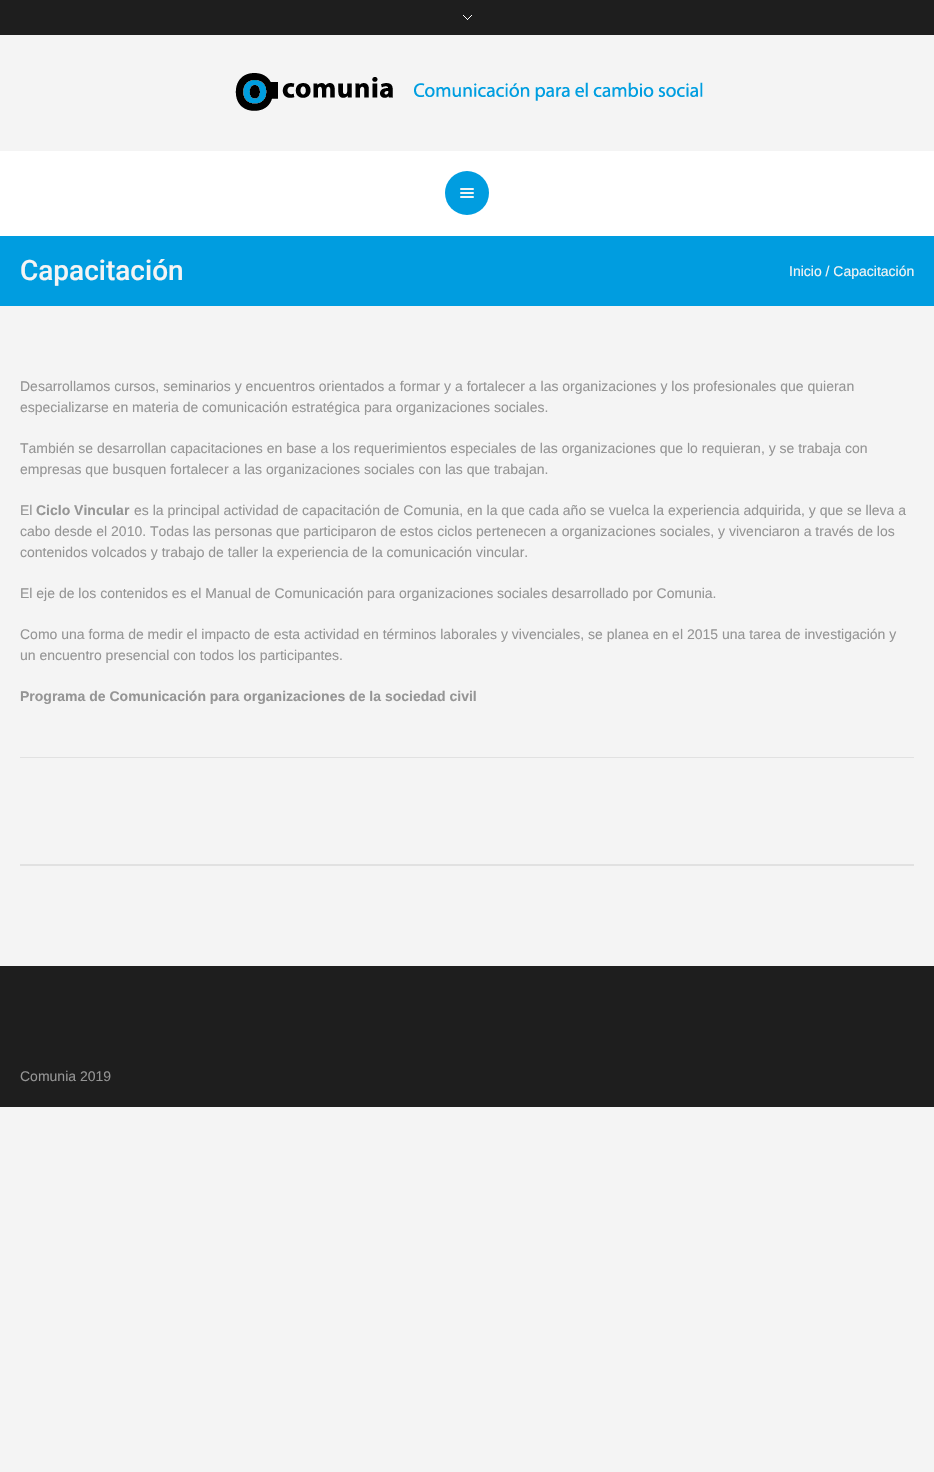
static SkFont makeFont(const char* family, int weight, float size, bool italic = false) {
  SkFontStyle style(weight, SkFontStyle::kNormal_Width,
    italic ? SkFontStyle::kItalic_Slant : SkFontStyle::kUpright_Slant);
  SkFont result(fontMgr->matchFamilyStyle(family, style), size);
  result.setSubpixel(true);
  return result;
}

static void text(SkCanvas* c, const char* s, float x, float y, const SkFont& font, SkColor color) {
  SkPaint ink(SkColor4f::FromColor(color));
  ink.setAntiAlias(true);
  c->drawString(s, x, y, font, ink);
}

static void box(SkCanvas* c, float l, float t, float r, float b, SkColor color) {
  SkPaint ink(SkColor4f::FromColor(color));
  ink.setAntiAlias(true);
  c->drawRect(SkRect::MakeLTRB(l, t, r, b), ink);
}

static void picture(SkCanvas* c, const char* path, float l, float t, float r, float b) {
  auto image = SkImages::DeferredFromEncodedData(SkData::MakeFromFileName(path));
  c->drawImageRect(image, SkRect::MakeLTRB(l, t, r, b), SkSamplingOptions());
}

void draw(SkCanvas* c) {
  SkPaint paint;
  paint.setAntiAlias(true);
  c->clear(0xfff4f4f4);
  box(c, 0, 0, 934, 35, 0xff1e1e1e);
  box(c, 467, 19, 468, 20, 0xffffffff);
  box(c, 471, 15, 472, 16, 0xffffffff);
  box(c, 463, 15, 464, 16, 0xffffffff);
  box(c, 470, 16, 471, 17, 0xffffffff);
  box(c, 464, 16, 465, 17, 0xffffffff);
  box(c, 469, 17, 470, 18, 0xffffffff);
  box(c, 465, 17, 466, 18, 0xffffffff);
  box(c, 468, 18, 469, 19, 0xffffffff);
  box(c, 466, 18, 467, 19, 0xffffffff);
  picture(c, "img_01.png", 235, 73, 703, 111);
  box(c, 0, 151, 934, 236, 0xffffffff);
  paint.setColor(0xff009de0);
  c->drawCircle(467, 193, 22, paint);
  picture(c, "img_02.png", 460, 188, 474, 198);
  box(c, 0, 236, 934, 306, 0xff009de0);
  SkFont face1 = makeFont("Roboto", 500, 28);
  text(c, "Capacitación", 20, 280, face1, 0xfff4f4f4);
  SkFont face2 = makeFont("Liberation Sans", 400, 14);
  text(c, "Inicio / Capacitación", 789, 276, face2, 0xfff4f4f4);
  text(c, "Desarrollamos cursos, seminarios y encuentros orientados a formar y a fortalecer a las organizaciones y los profesionales que quieran", 20, 391, face2, 0xff959595);
  text(c, "especializarse en materia de comunicación estratégica para organizaciones sociales.", 20, 412, face2, 0xff959595);
  text(c, "También se desarrollan capacitaciones en base a los requerimientos especiales de las organizaciones que lo requieran, y se trabaja con", 20, 453, face2, 0xff959595);
  text(c, "empresas que busquen fortalecer a las organizaciones sociales con las que trabajan.", 20, 474, face2, 0xff959595);
  text(c, "El", 20, 515, face2, 0xff959595);
  SkFont face3 = makeFont("Liberation Sans", 700, 14);
  text(c, "Ciclo Vincular", 36, 515, face3, 0xff959595);
  text(c, "es la principal actividad de capacitación de Comunia, en la que cada año se vuelca la experiencia adquirida, y que se lleva a", 134, 515, face2, 0xff959595);
  text(c, "cabo desde el 2010. Todas las personas que participaron de estos ciclos pertenecen a organizaciones sociales, y vivenciaron a través de los", 20, 536, face2, 0xff959595);
  text(c, "contenidos volcados y trabajo de taller la experiencia de la comunicación vincular.", 20, 557, face2, 0xff959595);
  text(c, "El eje de los contenidos es el Manual de Comunicación para organizaciones sociales desarrollado por Comunia.", 20, 598, face2, 0xff959595);
  text(c, "Como una forma de medir el impacto de esta actividad en términos laborales y vivenciales, se planea en el 2015 una tarea de investigación y", 20, 639, face2, 0xff959595);
  text(c, "un encuentro presencial con todos los participantes.", 20, 660, face2, 0xff959595);
  text(c, "Programa de Comunicación para organizaciones de la sociedad civil", 20, 701, face3, 0xff959595);
  box(c, 20, 757, 914, 758, 0xffe1e1e1);
  box(c, 20, 864, 914, 866, 0xffe1e1e1);
  box(c, 0, 966, 934, 1107, 0xff1e1e1e);
  text(c, "Comunia 2019", 20, 1081, face2, 0xff959595);
}
